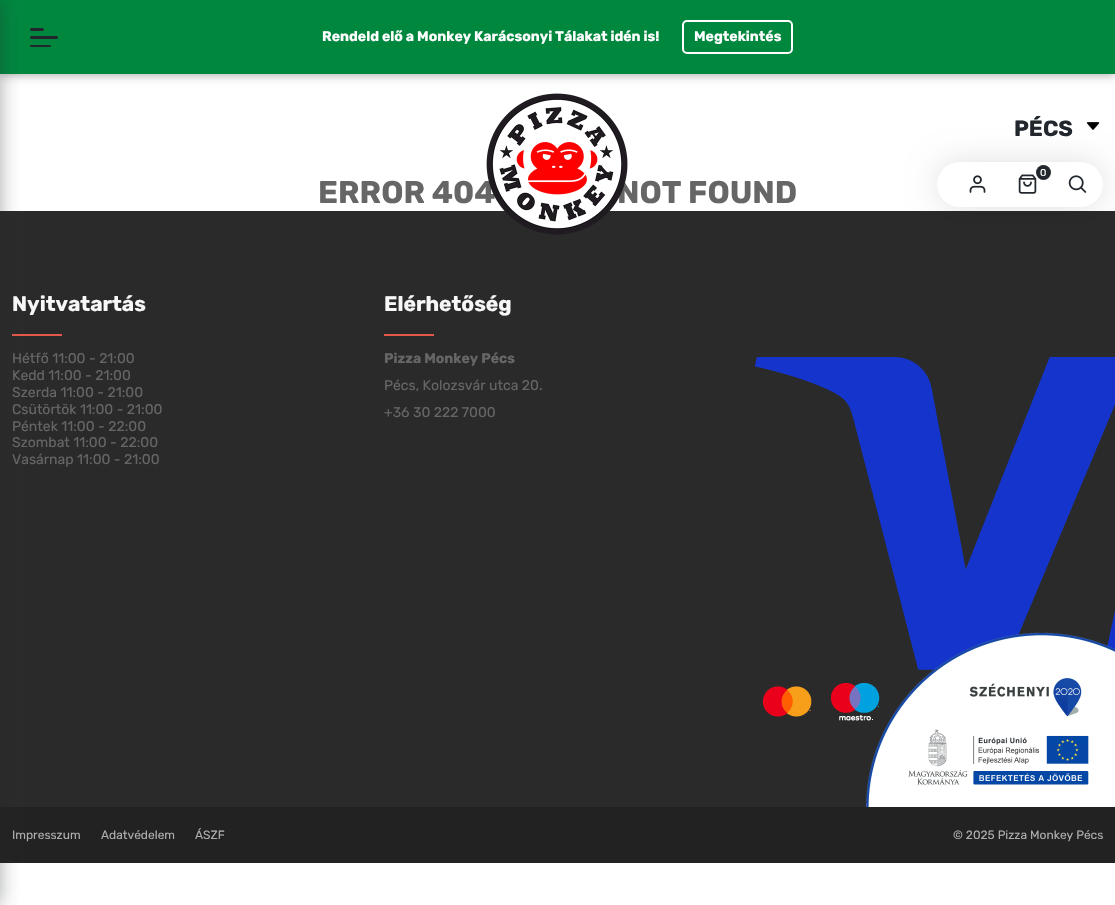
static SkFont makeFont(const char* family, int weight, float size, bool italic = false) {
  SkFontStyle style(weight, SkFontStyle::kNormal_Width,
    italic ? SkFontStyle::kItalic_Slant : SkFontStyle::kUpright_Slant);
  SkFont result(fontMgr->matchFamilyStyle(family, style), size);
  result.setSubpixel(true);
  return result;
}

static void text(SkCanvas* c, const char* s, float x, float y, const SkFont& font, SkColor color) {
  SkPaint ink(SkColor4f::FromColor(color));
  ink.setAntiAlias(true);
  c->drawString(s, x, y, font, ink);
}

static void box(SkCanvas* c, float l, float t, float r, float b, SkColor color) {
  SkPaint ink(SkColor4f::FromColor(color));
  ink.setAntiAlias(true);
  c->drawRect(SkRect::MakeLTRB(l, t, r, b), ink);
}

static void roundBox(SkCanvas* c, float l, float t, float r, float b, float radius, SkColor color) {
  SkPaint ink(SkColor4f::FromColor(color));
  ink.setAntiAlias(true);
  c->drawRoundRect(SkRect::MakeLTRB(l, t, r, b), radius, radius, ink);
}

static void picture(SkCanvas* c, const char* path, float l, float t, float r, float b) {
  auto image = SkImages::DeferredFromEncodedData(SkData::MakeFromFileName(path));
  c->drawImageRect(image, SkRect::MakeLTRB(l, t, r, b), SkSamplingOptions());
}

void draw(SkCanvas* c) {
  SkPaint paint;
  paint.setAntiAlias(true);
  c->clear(0xffffffff);
  paint.setColor(0x66000000);
  paint.setMaskFilter(SkMaskFilter::MakeBlur(kNormal_SkBlurStyle, 5));
  c->drawRect(SkRect::MakeLTRB(0, 0, 1115, 74), paint);
  paint.setMaskFilter(nullptr);
  box(c, 0, 0, 1115, 74, 0xff00873e);
  box(c, 0, 211, 1115, 807, 0xff2a2a2a);
  box(c, 12, 334, 62, 336, 0xffe4584b);
  box(c, 0, 807, 1115, 863, 0xff222222);
  paint.setColor(0x6622272d);
  paint.setMaskFilter(SkMaskFilter::MakeBlur(kNormal_SkBlurStyle, 10));
  c->drawRect(SkRect::MakeLTRB(-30, 0, 0, 905), paint);
  paint.setMaskFilter(nullptr);
  SkFont face1 = makeFont("Rubik", 300, 14);
  text(c, "Rendeld elő a Monkey Karácsonyi Tálakat idén is!", 322, 41, face1, 0xffffffff);
  paint.setStyle(SkPaint::kStroke_Style);
  paint.setStrokeWidth(2);
  paint.setColor(0xffffffff);
  c->drawRoundRect(SkRect::MakeLTRB(683, 21, 792, 53), 4, 4, paint);
  text(c, "Megtekintés", 694, 41, face1, 0xffffffff);
  roundBox(c, 30, 28, 44, 31, 1.5f, 0xff22272d);
  roundBox(c, 30, 36, 58, 39, 1.5f, 0xff22272d);
  roundBox(c, 30, 45, 51, 47, 1, 0xff22272d);
  SkFont face2 = makeFont("Rubik", 300, 31.25f);
  text(c, "ERROR 404", 318, 203, face2, 0xff666666);
  text(c, "NOT FOUND", 617, 203, face2, 0xff666666);
  picture(c, "img_01.png", 486, 93, 628, 235);
  paint.setStyle(SkPaint::kFill_Style);
  paint.setColor(0x1f000000);
  paint.setMaskFilter(SkMaskFilter::MakeBlur(kNormal_SkBlurStyle, 15));
  c->drawRoundRect(SkRect::MakeLTRB(937, 162, 1103, 207), 22.5f, 22.5f, paint);
  paint.setMaskFilter(nullptr);
  SkFont face3 = makeFont("Rubik", 300, 22);
  text(c, "PÉCS", 1014, 136, face3, 0xff22272d);
  picture(c, "img_02.png", 1086, 122, 1100, 130);
  roundBox(c, 937, 162, 1103, 207, 22.5f, 0xffffffff);
  picture(c, "img_03.png", 1018, 174, 1037, 194);
  paint.setColor(0xff22272d);
  c->drawCircle(1043.5f, 172.5f, 7.5f, paint);
  SkFont face4 = makeFont("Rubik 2", 300, 10);
  text(c, "0", 1040, 176, face4, 0xffffffff);
  picture(c, "img_04.png", 969, 175, 986, 193);
  picture(c, "img_05.png", 1068, 175, 1087, 193);
  SkFont face5 = makeFont("Rubik", 300, 21);
  text(c, "Nyitvatartás", 12, 311, face5, 0xfff7f7f7);
  SkFont face6 = makeFont("Rubik 2", 300, 14);
  text(c, "Hétfő 11:00 - 21:00", 12, 363, face6, 0xff666666);
  text(c, "Kedd 11:00 - 21:00", 12, 380, face6, 0xff666666);
  text(c, "Szerda 11:00 - 21:00", 12, 397, face6, 0xff666666);
  text(c, "Csütörtök 11:00 - 21:00", 12, 414, face6, 0xff666666);
  text(c, "Péntek 11:00 - 22:00", 12, 431, face6, 0xff666666);
  text(c, "Szombat 11:00 - 22:00", 12, 447, face6, 0xff666666);
  text(c, "Vasárnap 11:00 - 21:00", 12, 464, face6, 0xff666666);
  text(c, "Elérhetőség", 384, 311, face5, 0xfff7f7f7);
  box(c, 384, 334, 434, 336, 0xffe4584b);
  text(c, "Pizza Monkey Pécs", 384, 363, face1, 0xff666666);
  text(c, "Pécs, Kolozsvár utca 20.", 384, 390, face6, 0xff666666);
  text(c, "+36 30 222 7000", 384, 417, face6, 0xff666666);
  picture(c, "img_06.png", 755, 357, 1115, 670);
  picture(c, "img_07.png", 763, 686, 812, 717);
  picture(c, "img_08.png", 831, 683, 880, 721);
  picture(c, "img_09.png", 866, 632, 1115, 807);
  SkFont face7 = makeFont("Rubik 2", 300, 12);
  text(c, "Impresszum", 12, 839, face7, 0xffaeaeae);
  text(c, "Adatvédelem", 101, 839, face7, 0xffaeaeae);
  text(c, "ÁSZF", 195, 839, face7, 0xffaeaeae);
  text(c, "© 2025 Pizza Monkey Pécs", 953, 839, face7, 0xffaeaeae);
}
